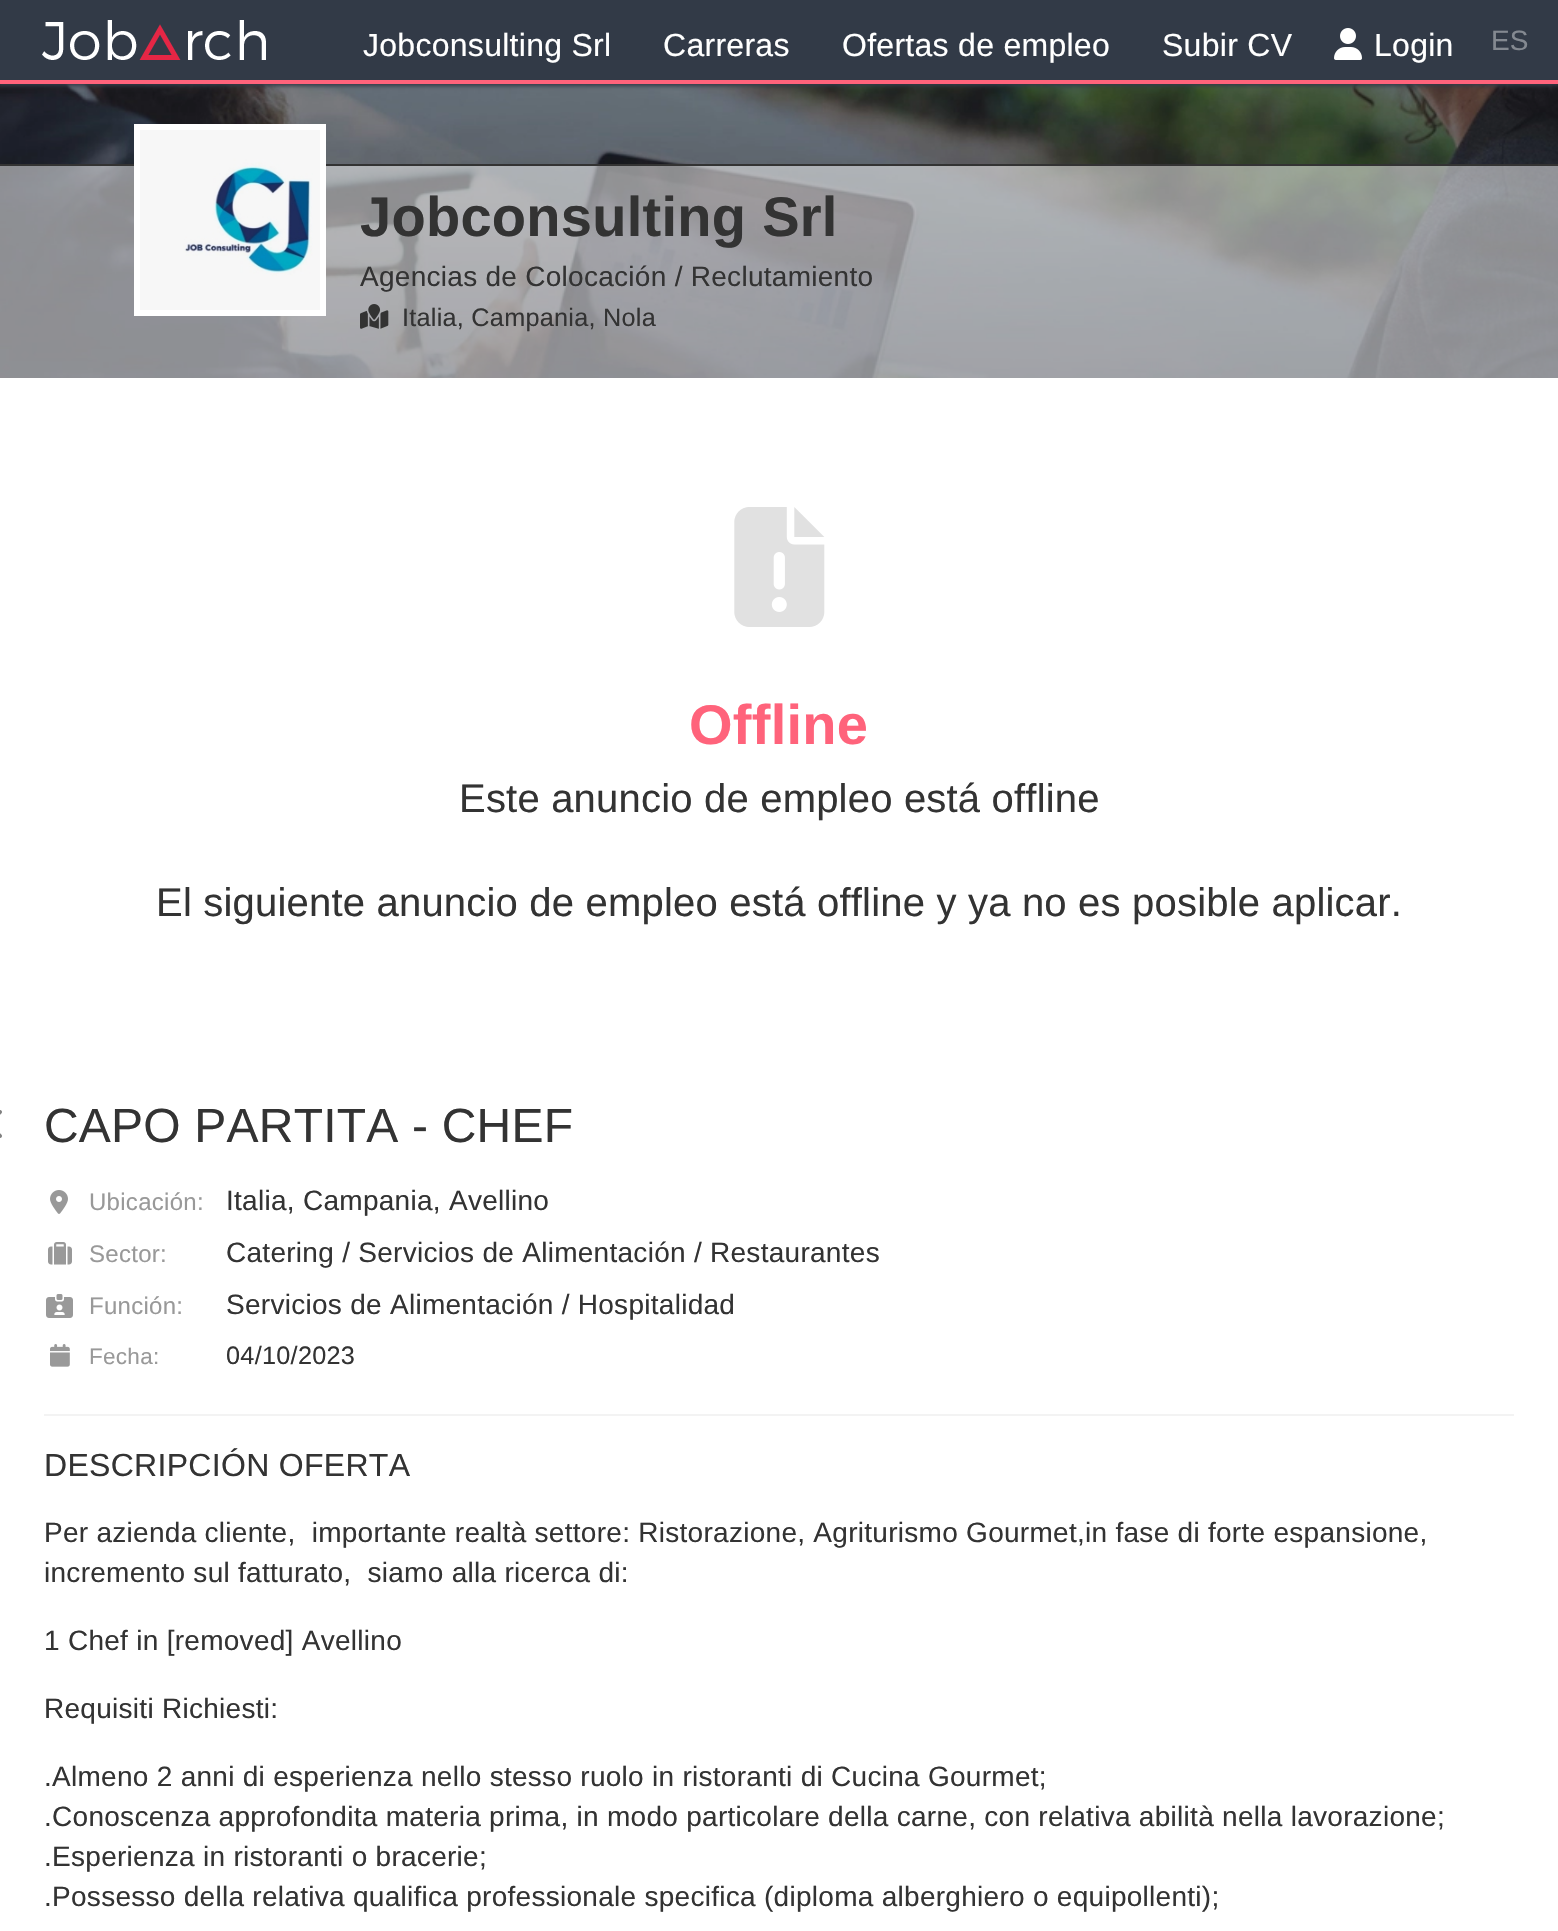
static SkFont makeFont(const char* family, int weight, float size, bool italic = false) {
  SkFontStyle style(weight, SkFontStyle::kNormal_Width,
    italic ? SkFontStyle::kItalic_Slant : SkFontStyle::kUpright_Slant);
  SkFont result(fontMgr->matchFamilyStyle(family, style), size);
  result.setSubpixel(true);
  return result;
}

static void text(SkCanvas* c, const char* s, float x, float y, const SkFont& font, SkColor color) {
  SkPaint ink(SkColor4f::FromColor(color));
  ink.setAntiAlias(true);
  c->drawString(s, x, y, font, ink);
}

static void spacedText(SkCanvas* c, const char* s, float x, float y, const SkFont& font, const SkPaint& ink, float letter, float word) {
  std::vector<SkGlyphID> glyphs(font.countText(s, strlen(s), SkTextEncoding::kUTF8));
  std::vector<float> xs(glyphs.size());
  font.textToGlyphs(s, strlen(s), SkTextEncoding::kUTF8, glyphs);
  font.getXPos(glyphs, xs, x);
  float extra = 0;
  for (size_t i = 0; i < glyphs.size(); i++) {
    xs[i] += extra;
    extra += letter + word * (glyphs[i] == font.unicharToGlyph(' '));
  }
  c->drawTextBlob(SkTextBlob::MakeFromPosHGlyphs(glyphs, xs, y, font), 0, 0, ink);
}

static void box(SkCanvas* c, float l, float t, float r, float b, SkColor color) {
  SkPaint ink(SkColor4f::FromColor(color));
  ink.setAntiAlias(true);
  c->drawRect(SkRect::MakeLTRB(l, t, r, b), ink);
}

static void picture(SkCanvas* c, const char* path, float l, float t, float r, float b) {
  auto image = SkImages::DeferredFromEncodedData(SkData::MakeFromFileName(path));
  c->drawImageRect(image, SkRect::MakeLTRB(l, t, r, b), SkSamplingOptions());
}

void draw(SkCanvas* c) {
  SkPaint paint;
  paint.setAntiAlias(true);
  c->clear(0xffffffff);
  picture(c, "img_03.png", 0, 84, 1558, 378);
  paint.setColor(0xff323a47);
  paint.setMaskFilter(SkMaskFilter::MakeBlur(kNormal_SkBlurStyle, 2));
  c->drawRect(SkRect::MakeLTRB(-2, -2, 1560, 86), paint);
  paint.setMaskFilter(nullptr);
  box(c, 0, 0, 1558, 80, 0xff323a47);
  picture(c, "img_01.png", 42, 20, 266, 60);
  SkFont face1 = makeFont("Liberation Sans", 400, 32);
  paint.setColor(0xffffffff);
  spacedText(c, "Jobconsulting Srl", 363, 56, face1, paint, 0.28f, 0);
  spacedText(c, "Carreras", 663, 56, face1, paint, 0.28f, 0);
  spacedText(c, "Ofertas de empleo", 842, 56, face1, paint, 0.28f, 0);
  spacedText(c, "Subir CV", 1162, 56, face1, paint, 0.28f, 0);
  picture(c, "img_02.png", 1334, 28, 1362, 60);
  spacedText(c, "Login", 1374, 56, face1, paint, 0.28f, 0);
  SkFont face2 = makeFont("Liberation Sans", 400, 28);
  text(c, "ES", 1491, 50, face2, 0xff848991);
  box(c, 0, 80, 1558, 84, 0xffff637b);
  box(c, 0, 166, 1558, 378, 0x80ffffff);
  box(c, 0, 164, 1558, 166, 0xff333333);
  picture(c, "img_04.png", 140, 130, 320, 310);
  paint.setStyle(SkPaint::kStroke_Style);
  paint.setStrokeWidth(6);
  c->drawRect(SkRect::MakeLTRB(137, 127, 323, 313), paint);
  SkFont face3 = makeFont("Liberation Sans", 700, 56);
  paint.setStyle(SkPaint::kFill_Style);
  paint.setColor(0xff333333);
  spacedText(c, "Jobconsulting Srl", 360, 236, face3, paint, 0.28f, 0);
  spacedText(c, "Agencias de Colocación / Reclutamiento", 360, 286, face2, paint, 0.28f, 0);
  picture(c, "img_05.png", 360, 304, 389, 329);
  SkFont face4 = makeFont("Liberation Sans", 400, 25.25f);
  spacedText(c, "Italia, Campania, Nola", 402, 326, face4, paint, 0.25f, 0);
  picture(c, "img_06.png", 734, 507, 825, 627);
  paint.setColor(0xffff637b);
  spacedText(c, "Offline", 689, 744, face3, paint, 0.28f, 0);
  SkFont face5 = makeFont("Liberation Sans", 400, 40);
  paint.setColor(0xff333333);
  spacedText(c, "Este anuncio de empleo está offline", 459, 812, face5, paint, 0.2f, 0);
  spacedText(c, "El siguiente anuncio de empleo está offline y ya no es posible aplicar.", 156, 916, face5, paint, 0.2f, 0);
  picture(c, "img_07.png", 0, 1110, 2, 1138);
  SkFont face6 = makeFont("Liberation Sans", 400, 48);
  spacedText(c, "CAPO PARTITA - CHEF", 44, 1142, face6, paint, 0.2f, 0);
  picture(c, "img_08.png", 50, 1190, 68, 1214);
  SkFont face7 = makeFont("Liberation Sans", 400, 24);
  paint.setColor(0xff999999);
  spacedText(c, "Ubicación:", 89, 1210, face7, paint, 0.28f, 0);
  paint.setColor(0xff333333);
  spacedText(c, "Italia, Campania, Avellino", 226, 1210, face2, paint, 0.28f, 0);
  picture(c, "img_09.png", 48, 1242, 72, 1265);
  paint.setColor(0xff999999);
  spacedText(c, "Sector:", 89, 1262, face7, paint, 0.28f, 0);
  paint.setColor(0xff333333);
  spacedText(c, "Catering / Servicios de Alimentación / Restaurantes", 226, 1262, face2, paint, 0.28f, 0);
  picture(c, "img_10.png", 46, 1294, 73, 1318);
  paint.setColor(0xff999999);
  spacedText(c, "Función:", 89, 1314, face7, paint, 0.28f, 0);
  paint.setColor(0xff333333);
  spacedText(c, "Servicios de Alimentación / Hospitalidad", 226, 1314, face2, paint, 0.28f, 0);
  picture(c, "img_11.png", 50, 1344, 70, 1367);
  SkFont face8 = makeFont("Liberation Sans", 400, 22.5f);
  paint.setColor(0xff999999);
  spacedText(c, "Fecha:", 89, 1364, face8, paint, 0.28f, 0);
  paint.setColor(0xff333333);
  spacedText(c, "04/10/2023", 226, 1364, face4, paint, 0.28f, 0);
  box(c, 44, 1414, 1514, 1416, 0xfff3f3f3);
  spacedText(c, "DESCRIPCIÓN OFERTA", 44, 1476, face1, paint, 0.3f, 0);
  spacedText(c, "Per azienda cliente,  importante realtà settore: Ristorazione, Agriturismo Gourmet,in fase di forte espansione,", 44, 1542, face2, paint, 0.28f, 0);
  spacedText(c, "incremento sul fatturato,  siamo alla ricerca di:", 44, 1582, face2, paint, 0.28f, 0);
  spacedText(c, "1 Chef in [removed] Avellino", 44, 1650, face2, paint, 0.28f, 0);
  spacedText(c, "Requisiti Richiesti:", 44, 1718, face2, paint, 0.28f, 0);
  spacedText(c, ".Almeno 2 anni di esperienza nello stesso ruolo in ristoranti di Cucina Gourmet;", 44, 1786, face2, paint, 0.28f, 0);
  spacedText(c, ".Conoscenza approfondita materia prima, in modo particolare della carne, con relativa abilità nella lavorazione;", 44, 1826, face2, paint, 0.28f, 0);
  spacedText(c, ".Esperienza in ristoranti o bracerie;", 44, 1866, face2, paint, 0.28f, 0);
  spacedText(c, ".Possesso della relativa qualifica professionale specifica (diploma alberghiero o equipollenti);", 44, 1906, face2, paint, 0.28f, 0);
}
